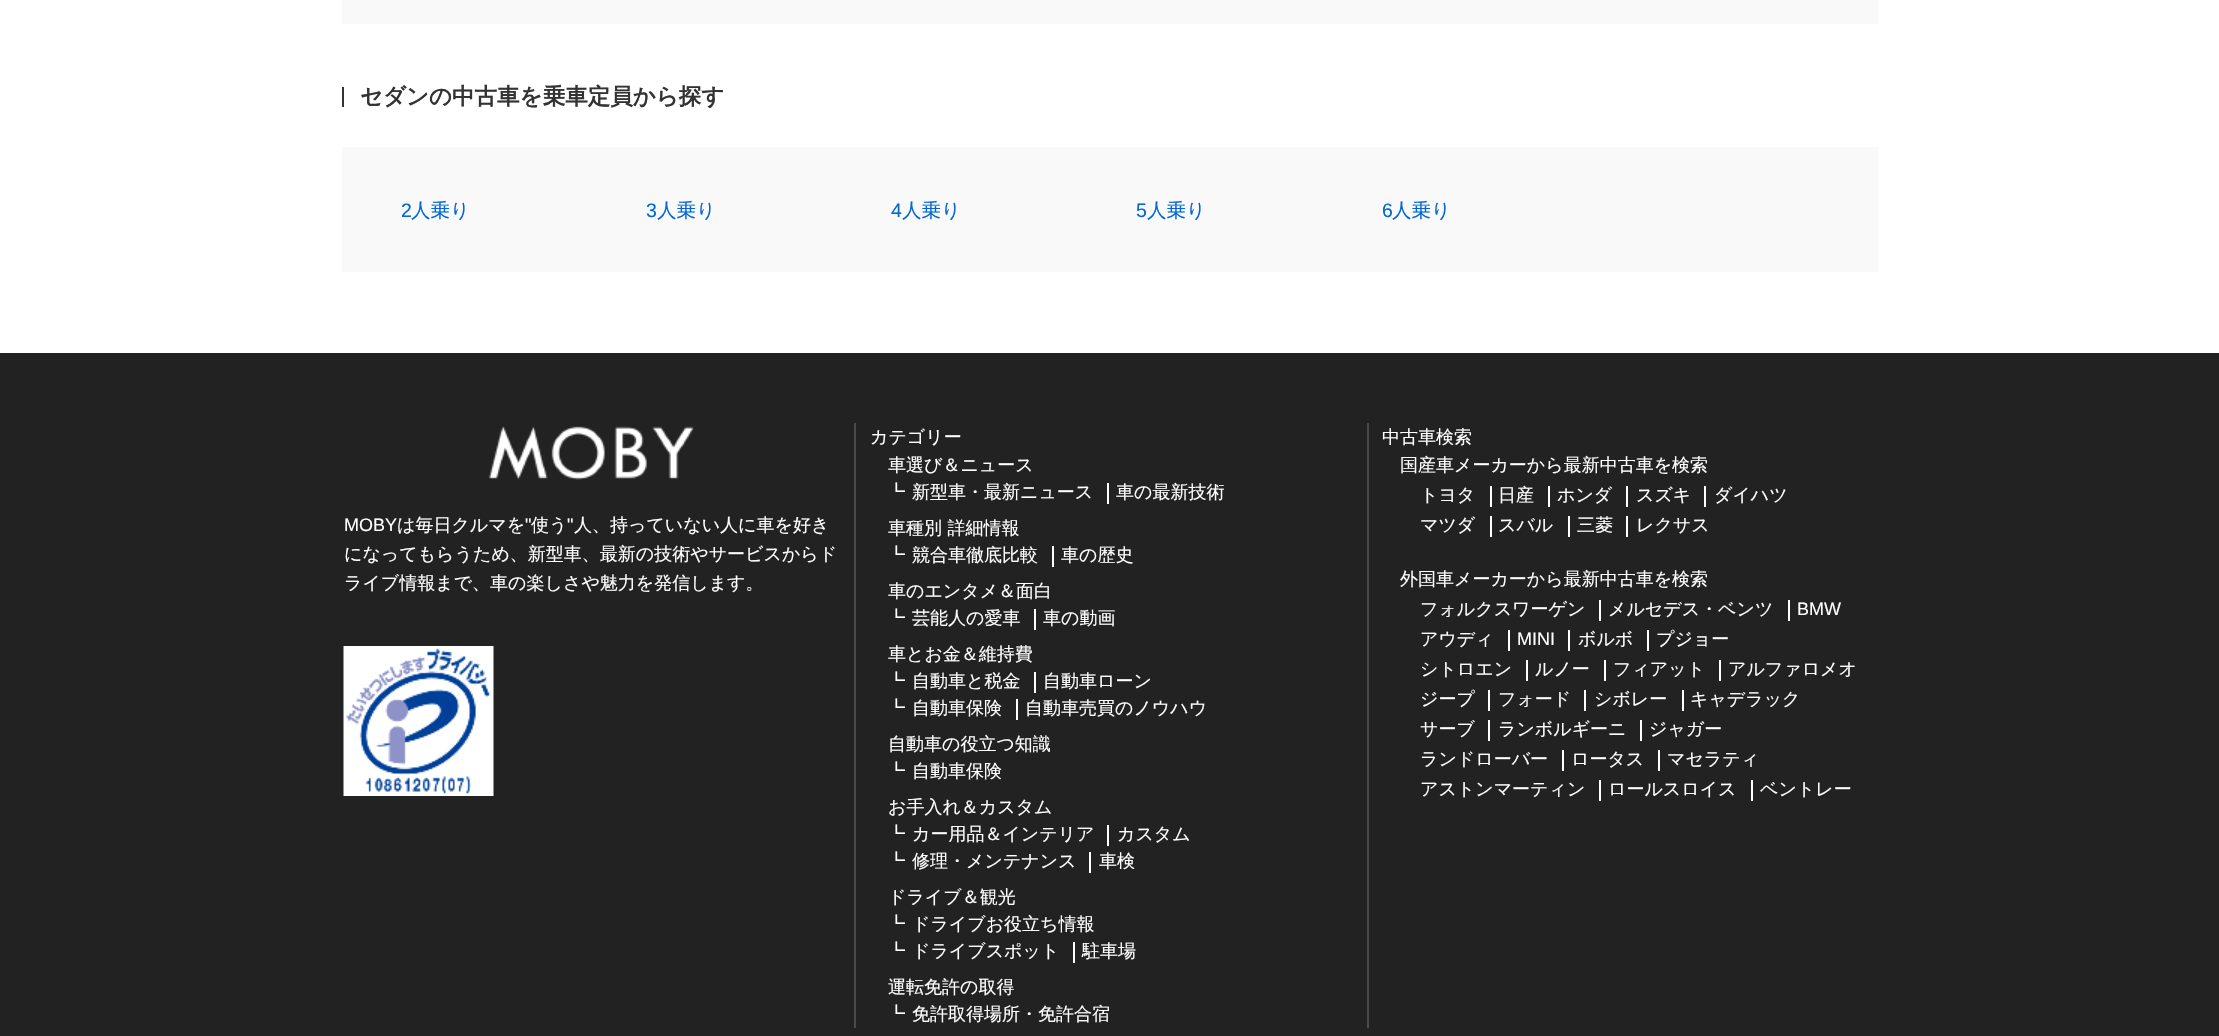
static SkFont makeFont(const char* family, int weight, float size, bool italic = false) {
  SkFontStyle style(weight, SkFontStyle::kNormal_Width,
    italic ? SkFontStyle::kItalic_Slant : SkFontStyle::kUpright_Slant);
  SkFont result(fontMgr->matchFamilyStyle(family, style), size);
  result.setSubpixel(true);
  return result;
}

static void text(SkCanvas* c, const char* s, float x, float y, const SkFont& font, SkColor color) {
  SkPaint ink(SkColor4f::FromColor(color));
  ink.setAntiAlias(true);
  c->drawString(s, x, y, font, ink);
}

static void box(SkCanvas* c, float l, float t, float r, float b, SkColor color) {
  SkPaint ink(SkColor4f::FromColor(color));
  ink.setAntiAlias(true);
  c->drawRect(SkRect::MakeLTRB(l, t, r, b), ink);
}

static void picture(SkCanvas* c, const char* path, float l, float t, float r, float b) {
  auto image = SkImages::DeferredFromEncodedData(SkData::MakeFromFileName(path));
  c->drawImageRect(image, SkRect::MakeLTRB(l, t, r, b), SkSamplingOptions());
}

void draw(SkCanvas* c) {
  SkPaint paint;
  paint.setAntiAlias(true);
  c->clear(0xffffffff);
  box(c, 342, 0, 1878, 24, 0xfff9f9f9);
  box(c, 342, 87, 344, 107, 0xff333333);
  SkFont face1 = makeFont("WenQuanYi Zen Hei", 700, 22.5f);
  text(c, "セダンの中古車を乗車定員から探す", 360, 104, face1, 0xff333333);
  box(c, 342, 147, 1878, 272, 0xfff9f9f9);
  SkFont face2 = makeFont("Liberation Sans", 400, 19.5f);
  text(c, "2", 401, 217, face2, 0xff0366d6);
  SkFont face3 = makeFont("WenQuanYi Zen Hei", 500, 19.5f);
  text(c, "人乗り", 411, 217, face3, 0xff0366d6);
  text(c, "3", 646, 217, face2, 0xff0366d6);
  text(c, "人乗り", 657, 217, face3, 0xff0366d6);
  text(c, "4", 891, 217, face2, 0xff0366d6);
  text(c, "人乗り", 902, 217, face3, 0xff0366d6);
  text(c, "5", 1136, 217, face2, 0xff0366d6);
  text(c, "人乗り", 1147, 217, face3, 0xff0366d6);
  text(c, "6", 1382, 217, face2, 0xff0366d6);
  text(c, "人乗り", 1392, 217, face3, 0xff0366d6);
  box(c, 0, 353, 2219, 1036, 0xff222222);
  box(c, 854, 423, 856, 1028, 0xff4a4a4a);
  picture(c, "img_01.png", 488, 426, 694, 480);
  SkFont face4 = makeFont("Liberation Sans", 400, 18);
  text(c, "MOBY", 344, 531, face4, 0xffffffff);
  SkFont face5 = makeFont("WenQuanYi Zen Hei", 500, 18);
  text(c, "は毎日クルマを", 397, 531, face5, 0xffffffff);
  text(c, "\"", 525, 531, face4, 0xffffffff);
  text(c, "使う", 531, 531, face5, 0xffffffff);
  text(c, "\"", 567, 531, face4, 0xffffffff);
  text(c, "人、持っていない人に車を好き", 574, 531, face5, 0xffffffff);
  text(c, "になってもらうため、新型車、最新の技術やサービスからド", 344, 560, face5, 0xffffffff);
  text(c, "ライブ情報まで、車の楽しさや魅力を発信します。", 344, 589, face5, 0xffffffff);
  picture(c, "img_02.png", 343, 646, 494, 796);
  box(c, 1367, 423, 1369, 1028, 0xff4a4a4a);
  text(c, "カテゴリー", 870, 443, face5, 0xffffffff);
  text(c, "車選び＆ニュース", 888, 471, face5, 0xffffffff);
  text(c, "┗", 887, 498, face5, 0xffffffff);
  text(c, "新型車・最新ニュース", 912, 498, face5, 0xffffffff);
  box(c, 1107, 483, 1109, 504, 0xffffffff);
  text(c, "車の最新技術", 1116, 498, face5, 0xffffffff);
  text(c, "車種別 詳細情報", 888, 534, face5, 0xffffffff);
  text(c, "┗", 887, 561, face5, 0xffffffff);
  text(c, "競合車徹底比較", 912, 561, face5, 0xffffffff);
  box(c, 1052, 546, 1054, 567, 0xffffffff);
  text(c, "車の歴史", 1061, 561, face5, 0xffffffff);
  text(c, "車のエンタメ＆面白", 888, 597, face5, 0xffffffff);
  text(c, "┗", 887, 624, face5, 0xffffffff);
  text(c, "芸能人の愛車", 912, 624, face5, 0xffffffff);
  box(c, 1034, 609, 1036, 630, 0xffffffff);
  text(c, "車の動画", 1043, 624, face5, 0xffffffff);
  text(c, "車とお金＆維持費", 888, 660, face5, 0xffffffff);
  text(c, "┗", 887, 687, face5, 0xffffffff);
  text(c, "自動車と税金", 912, 687, face5, 0xffffffff);
  box(c, 1034, 672, 1036, 693, 0xffffffff);
  text(c, "自動車ローン", 1043, 687, face5, 0xffffffff);
  text(c, "┗", 887, 714, face5, 0xffffffff);
  text(c, "自動車保険", 912, 714, face5, 0xffffffff);
  box(c, 1016, 699, 1018, 720, 0xffffffff);
  text(c, "自動車売買のノウハウ", 1025, 714, face5, 0xffffffff);
  text(c, "自動車の役立つ知識", 888, 750, face5, 0xffffffff);
  text(c, "┗", 887, 777, face5, 0xffffffff);
  text(c, "自動車保険", 912, 777, face5, 0xffffffff);
  text(c, "お手入れ＆カスタム", 888, 813, face5, 0xffffffff);
  text(c, "┗", 887, 840, face5, 0xffffffff);
  text(c, "カー用品＆インテリア", 912, 840, face5, 0xffffffff);
  box(c, 1107, 825, 1109, 846, 0xffffffff);
  text(c, "カスタム", 1117, 840, face5, 0xffffffff);
  text(c, "┗", 887, 867, face5, 0xffffffff);
  text(c, "修理・メンテナンス", 912, 867, face5, 0xffffffff);
  box(c, 1089, 852, 1091, 873, 0xffffffff);
  text(c, "車検", 1099, 867, face5, 0xffffffff);
  text(c, "ドライブ＆観光", 888, 903, face5, 0xffffffff);
  text(c, "┗", 887, 930, face5, 0xffffffff);
  text(c, "ドライブお役立ち情報", 912, 930, face5, 0xffffffff);
  text(c, "┗", 887, 957, face5, 0xffffffff);
  text(c, "ドライブスポット", 912, 957, face5, 0xffffffff);
  box(c, 1073, 942, 1075, 963, 0xffffffff);
  text(c, "駐車場", 1082, 957, face5, 0xffffffff);
  text(c, "運転免許の取得", 888, 993, face5, 0xffffffff);
  text(c, "┗", 887, 1020, face5, 0xffffffff);
  text(c, "免許取得場所・免許合宿", 912, 1020, face5, 0xffffffff);
  text(c, "中古車検索", 1382, 443, face5, 0xffffffff);
  text(c, "国産車メーカーから最新中古車を検索", 1400, 471, face5, 0xffffffff);
  text(c, "トヨタ", 1420, 501, face5, 0xffffffff);
  box(c, 1490, 486, 1492, 507, 0xffffffff);
  text(c, "日産", 1498, 501, face5, 0xffffffff);
  box(c, 1548, 486, 1550, 507, 0xffffffff);
  text(c, "ホンダ", 1557, 501, face5, 0xffffffff);
  box(c, 1626, 486, 1628, 507, 0xffffffff);
  text(c, "スズキ", 1636, 501, face5, 0xffffffff);
  box(c, 1704, 486, 1706, 507, 0xffffffff);
  text(c, "ダイハツ", 1714, 501, face5, 0xffffffff);
  text(c, "マツダ", 1420, 531, face5, 0xffffffff);
  box(c, 1490, 516, 1492, 537, 0xffffffff);
  text(c, "スバル", 1498, 531, face5, 0xffffffff);
  box(c, 1568, 516, 1570, 537, 0xffffffff);
  text(c, "三菱", 1577, 531, face5, 0xffffffff);
  box(c, 1626, 516, 1628, 537, 0xffffffff);
  text(c, "レクサス", 1636, 531, face5, 0xffffffff);
  text(c, "外国車メーカーから最新中古車を検索", 1400, 585, face5, 0xffffffff);
  text(c, "フォルクスワーゲン", 1420, 615, face5, 0xffffffff);
  box(c, 1599, 600, 1601, 621, 0xffffffff);
  text(c, "メルセデス・ベンツ", 1608, 615, face5, 0xffffffff);
  box(c, 1788, 600, 1790, 621, 0xffffffff);
  text(c, "BMW", 1797, 615, face4, 0xffffffff);
  text(c, "アウディ", 1420, 645, face5, 0xffffffff);
  box(c, 1508, 630, 1510, 651, 0xffffffff);
  text(c, "MINI", 1517, 645, face4, 0xffffffff);
  box(c, 1568, 630, 1570, 651, 0xffffffff);
  text(c, "ボルボ", 1578, 645, face5, 0xffffffff);
  box(c, 1647, 630, 1649, 651, 0xffffffff);
  text(c, "プジョー", 1656, 645, face5, 0xffffffff);
  text(c, "シトロエン", 1420, 675, face5, 0xffffffff);
  box(c, 1526, 660, 1528, 681, 0xffffffff);
  text(c, "ルノー", 1535, 675, face5, 0xffffffff);
  box(c, 1604, 660, 1606, 681, 0xffffffff);
  text(c, "フィアット", 1613, 675, face5, 0xffffffff);
  box(c, 1719, 660, 1721, 681, 0xffffffff);
  text(c, "アルファロメオ", 1728, 675, face5, 0xffffffff);
  text(c, "ジープ", 1420, 705, face5, 0xffffffff);
  box(c, 1488, 690, 1490, 711, 0xffffffff);
  text(c, "フォード", 1498, 705, face5, 0xffffffff);
  box(c, 1584, 690, 1586, 711, 0xffffffff);
  text(c, "シボレー", 1594, 705, face5, 0xffffffff);
  box(c, 1682, 690, 1684, 711, 0xffffffff);
  text(c, "キャデラック", 1690, 705, face5, 0xffffffff);
  text(c, "サーブ", 1420, 735, face5, 0xffffffff);
  box(c, 1488, 720, 1490, 741, 0xffffffff);
  text(c, "ランボルギーニ", 1498, 735, face5, 0xffffffff);
  box(c, 1640, 720, 1642, 741, 0xffffffff);
  text(c, "ジャガー", 1649, 735, face5, 0xffffffff);
  text(c, "ランドローバー", 1420, 765, face5, 0xffffffff);
  box(c, 1562, 750, 1564, 771, 0xffffffff);
  text(c, "ロータス", 1571, 765, face5, 0xffffffff);
  box(c, 1658, 750, 1660, 771, 0xffffffff);
  text(c, "マセラティ", 1667, 765, face5, 0xffffffff);
  text(c, "アストンマーティン", 1420, 795, face5, 0xffffffff);
  box(c, 1599, 780, 1601, 801, 0xffffffff);
  text(c, "ロールスロイス", 1608, 795, face5, 0xffffffff);
  box(c, 1751, 780, 1753, 801, 0xffffffff);
  text(c, "ベントレー", 1760, 795, face5, 0xffffffff);
}
